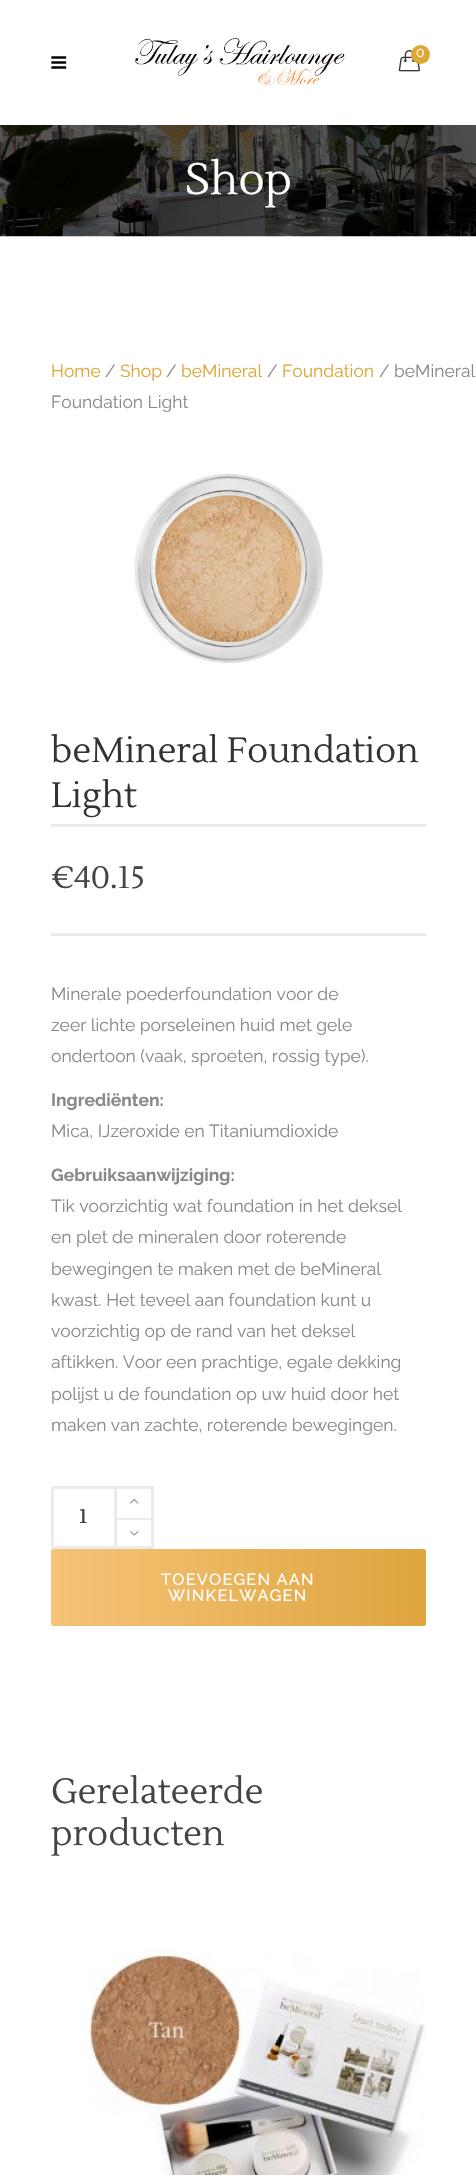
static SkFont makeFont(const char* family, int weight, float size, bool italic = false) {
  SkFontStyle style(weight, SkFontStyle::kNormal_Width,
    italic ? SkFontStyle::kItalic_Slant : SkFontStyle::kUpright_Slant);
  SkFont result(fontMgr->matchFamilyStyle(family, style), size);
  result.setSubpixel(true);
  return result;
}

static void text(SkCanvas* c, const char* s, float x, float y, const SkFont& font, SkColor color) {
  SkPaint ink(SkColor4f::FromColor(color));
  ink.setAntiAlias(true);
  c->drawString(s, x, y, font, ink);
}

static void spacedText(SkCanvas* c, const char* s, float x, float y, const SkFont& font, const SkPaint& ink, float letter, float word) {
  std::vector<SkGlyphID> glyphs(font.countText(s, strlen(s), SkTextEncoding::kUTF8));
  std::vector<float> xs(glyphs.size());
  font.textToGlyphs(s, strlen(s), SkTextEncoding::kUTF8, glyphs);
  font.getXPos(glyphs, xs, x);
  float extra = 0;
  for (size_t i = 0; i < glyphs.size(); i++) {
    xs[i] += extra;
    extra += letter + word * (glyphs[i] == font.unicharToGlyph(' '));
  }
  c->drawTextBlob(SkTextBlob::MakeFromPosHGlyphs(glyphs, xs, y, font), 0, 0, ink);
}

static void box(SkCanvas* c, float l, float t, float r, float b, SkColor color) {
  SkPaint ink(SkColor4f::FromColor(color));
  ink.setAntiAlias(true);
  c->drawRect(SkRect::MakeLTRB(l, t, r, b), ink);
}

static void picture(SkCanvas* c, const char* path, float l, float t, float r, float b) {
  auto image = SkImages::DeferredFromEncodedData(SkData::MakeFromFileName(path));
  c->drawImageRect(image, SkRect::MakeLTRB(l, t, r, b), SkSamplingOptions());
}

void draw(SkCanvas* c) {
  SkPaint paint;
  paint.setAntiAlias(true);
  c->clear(0xffffffff);
  picture(c, "img_01.png", 135, 38, 345, 85);
  picture(c, "img_02.png", 398, 50, 420, 72);
  paint.setColor(0xffdfa735);
  c->drawCircle(420.5f, 54.5f, 9.5f, paint);
  SkFont face1 = makeFont("Raleway", 400, 14);
  text(c, "0", 416, 57, face1, 0xffffffff);
  picture(c, "img_03.png", 51, 56, 67, 69);
  picture(c, "img_04.png", 0, 125, 476, 237);
  SkFont face2 = makeFont("Lustria", 400, 44);
  text(c, "Shop", 185, 194, face2, 0xffffffff);
  SkFont face3 = makeFont("Raleway", 400, 17.5f);
  text(c, "Home", 51, 377, face3, 0xffdfa735);
  text(c, "/", 105, 377, face3, 0xff898989);
  text(c, "Shop", 120, 377, face3, 0xffdfa735);
  text(c, "/", 166, 377, face3, 0xff898989);
  text(c, "beMineral", 181, 377, face3, 0xffdfa735);
  text(c, "/", 267, 377, face3, 0xff898989);
  text(c, "Foundation", 282, 377, face3, 0xffdfa735);
  text(c, "/ beMineral", 379, 377, face3, 0xff898989);
  text(c, "Foundation Light", 51, 408, face3, 0xff898989);
  picture(c, "img_05.png", 134, 474, 323, 663);
  SkFont face4 = makeFont("Lustria", 400, 35);
  text(c, "beMineral Foundation", 51, 762, face4, 0xff333333);
  text(c, "Light", 51, 807, face4, 0xff333333);
  box(c, 51, 824, 426, 827, 0xffebebeb);
  box(c, 51, 933, 426, 936, 0xffebebeb);
  SkFont face5 = makeFont("Lustria", 400, 31);
  text(c, "€40.15", 51, 888, face5, 0xff444444);
  text(c, "Minerale poederfoundation voor de", 51, 1000, face3, 0xff898989);
  text(c, "zeer lichte porseleinen huid met gele", 51, 1031, face3, 0xff898989);
  text(c, "ondertoon (vaak, sproeten, rossig type).", 51, 1062, face3, 0xff898989);
  SkFont face6 = makeFont("Raleway", 700, 17.5f);
  text(c, "Ingrediënten:", 51, 1106, face6, 0xff898989);
  text(c, "Mica, IJzeroxide en Titaniumdioxide", 51, 1137, face3, 0xff898989);
  text(c, "Gebruiksaanwijziging:", 51, 1181, face6, 0xff898989);
  text(c, "Tik voorzichtig wat foundation in het deksel", 51, 1212, face3, 0xff898989);
  text(c, "en plet de mineralen door roterende", 51, 1243, face3, 0xff898989);
  text(c, "bewegingen te maken met de beMineral", 51, 1275, face3, 0xff898989);
  text(c, "kwast. Het teveel aan foundation kunt u", 51, 1306, face3, 0xff898989);
  text(c, "voorzichtig op de rand van het deksel", 51, 1337, face3, 0xff898989);
  text(c, "aftikken. Voor een prachtige, egale dekking", 51, 1368, face3, 0xff898989);
  text(c, "polijst u de foundation op uw huid door het", 51, 1400, face3, 0xff898989);
  text(c, "maken van zachte, roterende bewegingen.", 51, 1431, face3, 0xff898989);
  paint.setStyle(SkPaint::kStroke_Style);
  paint.setStrokeWidth(3);
  paint.setColor(0xffebebeb);
  c->drawRect(SkRect::MakeLTRB(52.5f, 1487.5f, 152.5f, 1547.5f), paint);
  SkFont face7 = makeFont("Lustria", 700, 19);
  paint.setStyle(SkPaint::kFill_Style);
  paint.setColor(0xff444444);
  spacedText(c, "1", 79, 1523, face7, paint, 1.25f, 0);
  box(c, 114, 1489, 117, 1546, 0xffebebeb);
  box(c, 116, 1518, 151, 1520, 0xffebebeb);
  picture(c, "img_06.png", 130, 1499, 139, 1504);
  picture(c, "img_07.png", 130, 1531, 139, 1536);
  {
    const SkColor colors[] = {0xfff6c478, 0xffdea43e, 0xfff6c478};
    const float stops[] = {0, 0.5f, 1};
    const SkPoint ends[] = {{51, 1588}, {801, 1588}};
    paint.setShader(SkGradientShader::MakeLinear(ends, colors, stops, 3, SkTileMode::kClamp));
    paint.setAlpha(255);
  }
  c->drawRoundRect(SkRect::MakeLTRB(51, 1549, 426, 1626), 2.5f, 2.5f, paint);
  SkFont face8 = makeFont("Raleway", 500, 16.25f);
  paint.setShader(nullptr);
  paint.setColor(0xffffffff);
  spacedText(c, "TOEVOEGEN AAN", 161, 1585, face8, paint, 1.25f, 0);
  spacedText(c, "WINKELWAGEN", 168, 1601, face8, paint, 1.25f, 0);
  text(c, "Gerelateerde", 51, 1803, face4, 0xff444444);
  text(c, "producten", 51, 1845, face4, 0xff444444);
  picture(c, "img_08.png", 89, 1948, 426, 2175);
}
